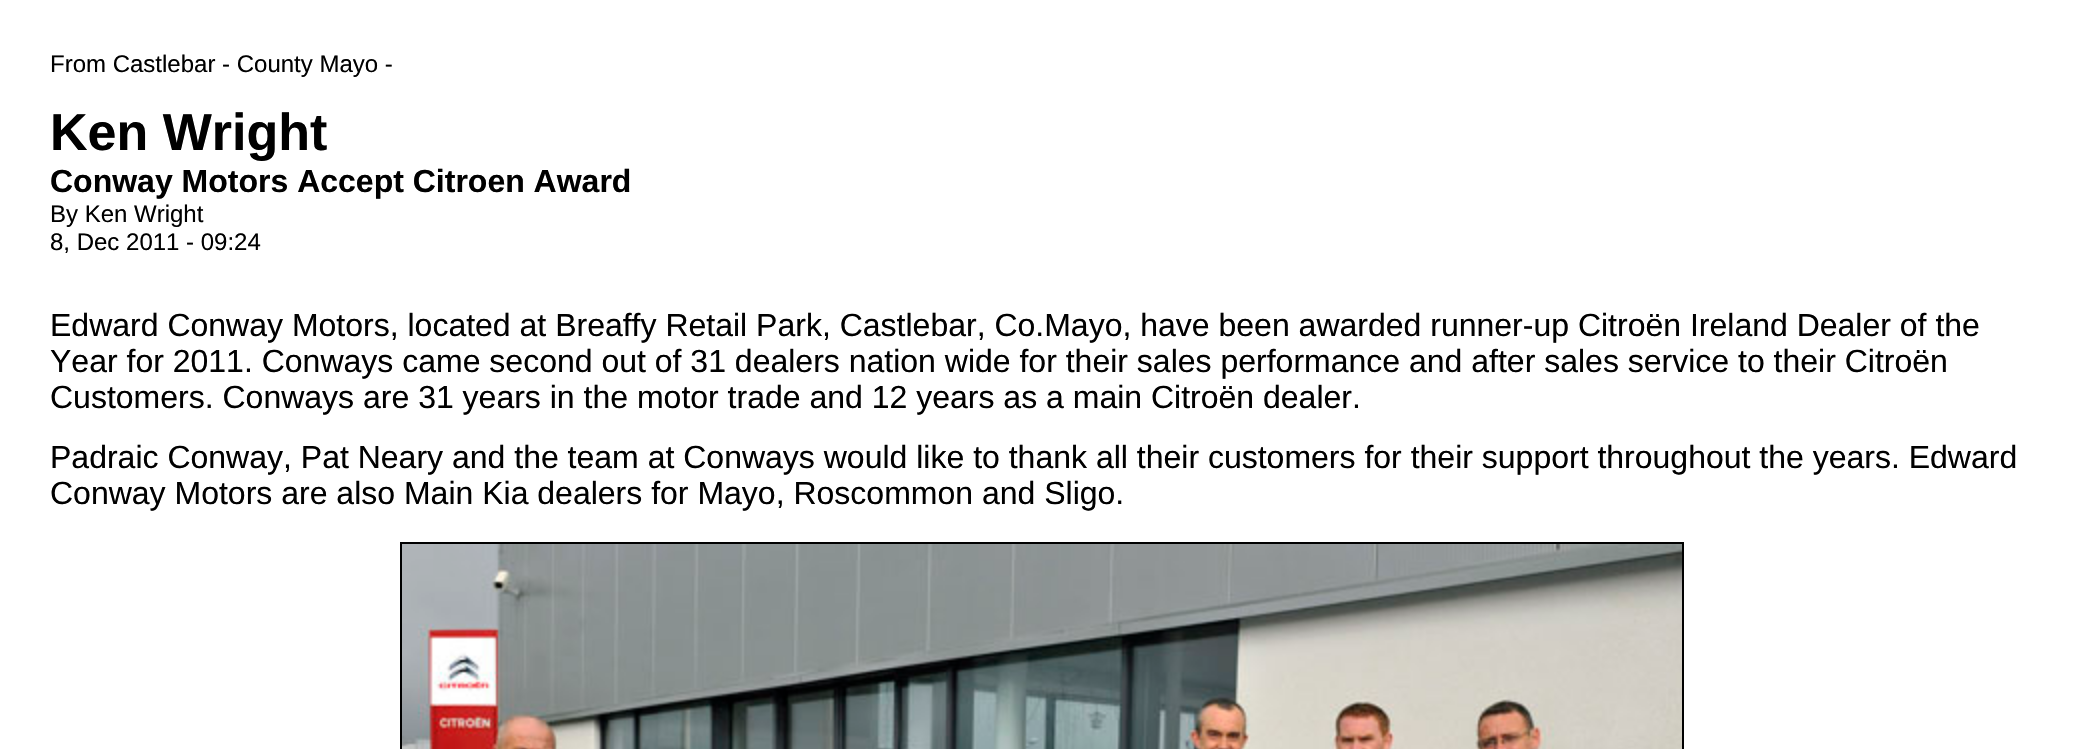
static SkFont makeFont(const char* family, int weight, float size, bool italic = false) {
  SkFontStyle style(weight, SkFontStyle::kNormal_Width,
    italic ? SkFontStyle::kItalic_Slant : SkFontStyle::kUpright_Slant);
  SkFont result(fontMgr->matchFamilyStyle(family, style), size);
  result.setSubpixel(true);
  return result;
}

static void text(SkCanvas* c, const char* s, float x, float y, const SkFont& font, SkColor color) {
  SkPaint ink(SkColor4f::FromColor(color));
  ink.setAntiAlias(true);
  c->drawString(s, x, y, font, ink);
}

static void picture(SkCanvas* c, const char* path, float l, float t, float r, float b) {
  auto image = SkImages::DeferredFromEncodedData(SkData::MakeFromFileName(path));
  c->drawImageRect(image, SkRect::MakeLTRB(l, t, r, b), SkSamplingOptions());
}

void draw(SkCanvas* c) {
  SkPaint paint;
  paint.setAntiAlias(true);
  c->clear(0xffffffff);
  SkFont face1 = makeFont("Liberation Sans", 400, 24);
  text(c, "From Castlebar - County Mayo -", 50, 72, face1, 0xff000000);
  SkFont face2 = makeFont("Liberation Sans", 700, 52);
  text(c, "Ken Wright", 50, 150, face2, 0xff000000);
  SkFont face3 = makeFont("Liberation Sans", 700, 32);
  text(c, "Conway Motors Accept Citroen Award", 50, 192, face3, 0xff000000);
  text(c, "By Ken Wright", 50, 222, face1, 0xff000000);
  text(c, "8, Dec 2011 - 09:24", 50, 250, face1, 0xff000000);
  SkFont face4 = makeFont("Liberation Sans", 400, 32);
  text(c, "Edward Conway Motors, located at Breaffy Retail Park, Castlebar, Co.Mayo, have been awarded runner-up Citroën Ireland Dealer of the", 50, 336, face4, 0xff000000);
  text(c, "Year for 2011. Conways came second out of 31 dealers nation wide for their sales performance and after sales service to their Citroën", 50, 372, face4, 0xff000000);
  text(c, "Customers. Conways are 31 years in the motor trade and 12 years as a main Citroën dealer.", 50, 408, face4, 0xff000000);
  text(c, "Padraic Conway, Pat Neary and the team at Conways would like to thank all their customers for their support throughout the years. Edward", 50, 468, face4, 0xff000000);
  text(c, "Conway Motors are also Main Kia dealers for Mayo, Roscommon and Sligo.", 50, 504, face4, 0xff000000);
  paint.setStyle(SkPaint::kStroke_Style);
  paint.setStrokeWidth(2);
  paint.setColor(0xff000000);
  c->drawRect(SkRect::MakeLTRB(401, 543, 1683, 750), paint);
  picture(c, "img_01.png", 402, 544, 1682, 749);
}
